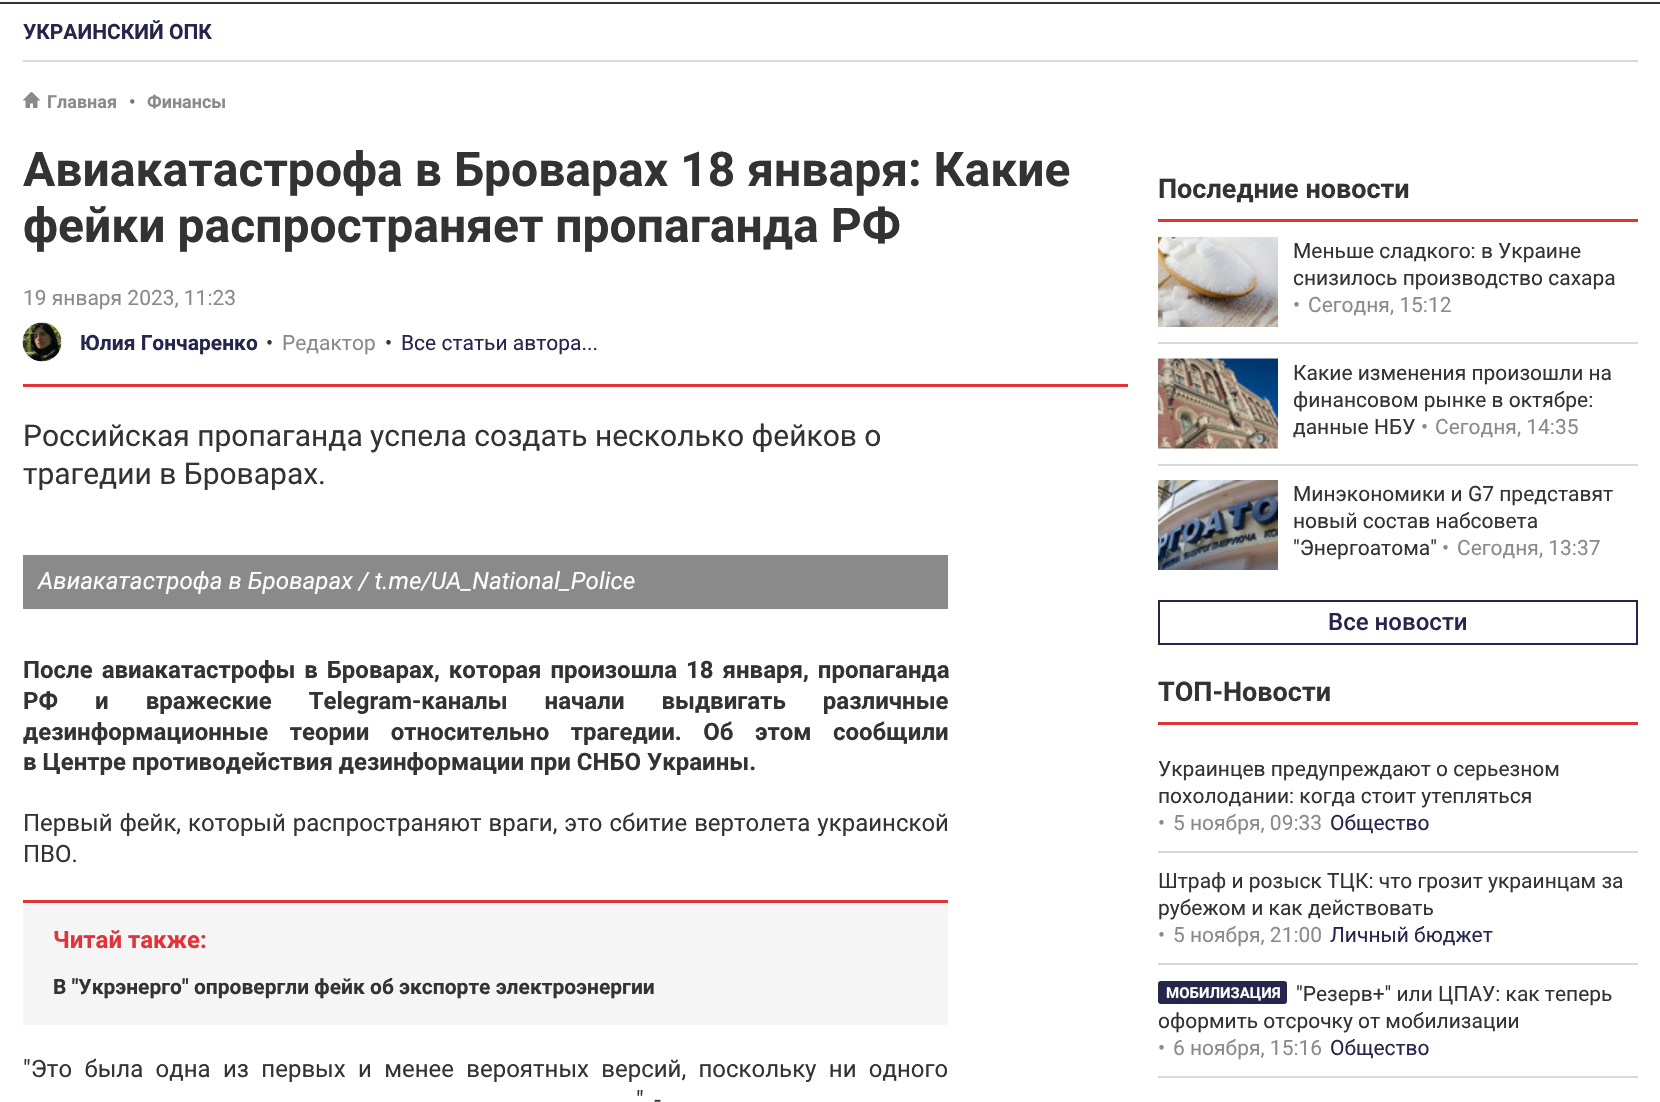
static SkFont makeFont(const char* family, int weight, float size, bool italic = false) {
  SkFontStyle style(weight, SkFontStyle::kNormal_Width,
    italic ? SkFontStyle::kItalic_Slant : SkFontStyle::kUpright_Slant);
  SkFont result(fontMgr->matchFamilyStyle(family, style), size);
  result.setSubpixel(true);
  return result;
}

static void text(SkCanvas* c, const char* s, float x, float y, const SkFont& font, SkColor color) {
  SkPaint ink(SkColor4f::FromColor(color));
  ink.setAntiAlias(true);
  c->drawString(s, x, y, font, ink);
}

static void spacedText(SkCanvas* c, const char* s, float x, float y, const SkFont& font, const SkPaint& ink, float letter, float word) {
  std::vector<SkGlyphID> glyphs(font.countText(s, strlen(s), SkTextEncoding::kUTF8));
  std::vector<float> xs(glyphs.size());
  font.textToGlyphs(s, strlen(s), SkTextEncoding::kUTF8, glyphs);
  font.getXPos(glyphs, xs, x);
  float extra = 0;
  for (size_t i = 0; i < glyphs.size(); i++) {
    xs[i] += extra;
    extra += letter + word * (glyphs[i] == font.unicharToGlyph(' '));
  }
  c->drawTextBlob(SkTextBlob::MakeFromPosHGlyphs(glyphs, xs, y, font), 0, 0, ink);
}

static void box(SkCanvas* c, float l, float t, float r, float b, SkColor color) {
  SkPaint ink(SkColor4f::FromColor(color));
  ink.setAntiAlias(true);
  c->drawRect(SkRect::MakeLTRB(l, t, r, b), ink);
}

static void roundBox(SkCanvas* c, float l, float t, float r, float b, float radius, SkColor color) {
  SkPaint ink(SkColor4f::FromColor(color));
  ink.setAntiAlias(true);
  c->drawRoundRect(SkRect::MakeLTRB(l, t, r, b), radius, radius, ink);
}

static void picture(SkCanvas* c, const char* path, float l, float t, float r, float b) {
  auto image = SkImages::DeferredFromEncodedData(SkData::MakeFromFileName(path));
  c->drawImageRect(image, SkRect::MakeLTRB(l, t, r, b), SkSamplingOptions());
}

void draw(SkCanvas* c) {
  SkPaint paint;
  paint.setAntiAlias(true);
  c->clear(0xffffffff);
  box(c, 0, 2, 1660, 4, 0xff333333);
  box(c, 23, 60, 1638, 62, 0xffd9d9d9);
  SkFont face1 = makeFont("Roboto", 700, 21);
  text(c, "УКРАИНСКИЙ ОПК", 23, 39, face1, 0xff26264d);
  picture(c, "img_01.png", 23, 92, 41, 108);
  SkFont face2 = makeFont("Roboto", 700, 18);
  text(c, "Главная", 47, 108, face2, 0xff8a8a8a);
  text(c, "•", 129, 108, face2, 0xff6c757d);
  text(c, "Финансы", 147, 108, face2, 0xff8a8a8a);
  box(c, 23, 384, 1128, 387, 0xffe0343a);
  SkFont face3 = makeFont("Roboto", 700, 48);
  text(c, "Авиакатастрофа в Броварах 18 января: Какие", 23, 186, face3, 0xff333333);
  text(c, "фейки распространяет пропаганда РФ", 23, 242, face3, 0xff333333);
  SkFont face4 = makeFont("Roboto", 400, 21);
  text(c, "19 января 2023, 11:23", 23, 305, face4, 0xff8a8a8a);
  picture(c, "img_02.png", 22, 322, 62, 362);
  text(c, "Юлия Гончаренко", 80, 350, face1, 0xff26264d);
  text(c, "•", 266, 350, face4, 0xff333333);
  text(c, "Редактор", 282, 350, face4, 0xff8a8a8a);
  text(c, "•", 385, 350, face4, 0xff333333);
  text(c, "Все статьи автора...", 401, 350, face4, 0xff26264d);
  SkFont face5 = makeFont("Roboto", 400, 30);
  text(c, "Российская пропаганда успела создать несколько фейков о", 23, 446, face5, 0xff333333);
  text(c, "трагедии в Броварах.", 23, 484, face5, 0xff333333);
  box(c, 23, 555, 948, 609, 0xff8a8a8a);
  SkFont face6 = makeFont("Roboto", 400, 24, true);
  text(c, "Авиакатастрофа в Броварах / t.me/UA_National_Police", 38, 589, face6, 0xffffffff);
  SkFont face7 = makeFont("Roboto", 700, 24);
  paint.setColor(0xff333333);
  spacedText(c, "После авиакатастрофы в Броварах, которая произошла 18 января, пропаганда", 23, 678, face7, paint, 0, 3);
  spacedText(c, "РФ и вражеские Telegram-каналы начали выдвигать различные", 23, 709, face7, paint, 0, 31);
  spacedText(c, "дезинформационные теории относительно трагедии. Об этом сообщили", 23, 740, face7, paint, 0, 15.5f);
  text(c, "в Центре противодействия дезинформации при СНБО Украины.", 23, 770, face7, 0xff333333);
  SkFont face8 = makeFont("Roboto", 400, 24);
  spacedText(c, "Первый фейк, который распространяют враги, это сбитие вертолета украинской", 23, 831, face8, paint, 0, 1);
  text(c, "ПВО.", 23, 862, face8, 0xff333333);
  box(c, 23, 903, 948, 1025, 0xfff5f5f5);
  box(c, 23, 900, 948, 903, 0xffe0343a);
  text(c, "Читай также:", 53, 948, face7, 0xffe0343a);
  text(c, "В \"Укрэнерго\" опровергли фейк об экспорте электроэнергии", 53, 994, face1, 0xff333333);
  spacedText(c, "\"Это была одна из первых и менее вероятных версий, поскольку ни одного", 23, 1077, face8, paint, 0, 6.4f);
  text(c, "\", -", 636, 1108, face8, 0xff333333);
  box(c, 1158, 219, 1638, 222, 0xffe0343a);
  SkFont face9 = makeFont("Roboto", 700, 27);
  text(c, "Последние новости", 1158, 198, face9, 0xff333333);
  box(c, 1158, 342, 1638, 344, 0xffd9d9d9);
  picture(c, "img_03.png", 1158, 237, 1278, 327);
  text(c, "Меньше сладкого: в Украине", 1293, 258, face4, 0xff333333);
  text(c, "снизилось производство сахара", 1293, 285, face4, 0xff333333);
  text(c, "•", 1293, 312, face4, 0xff8a8a8a);
  text(c, "Сегодня, 15:12", 1308, 312, face4, 0xff8a8a8a);
  box(c, 1158, 464, 1638, 466, 0xffd9d9d9);
  picture(c, "img_04.png", 1158, 358, 1278, 449);
  text(c, "Какие изменения произошли на", 1293, 380, face4, 0xff333333);
  text(c, "финансовом рынке в октябре:", 1293, 407, face4, 0xff333333);
  text(c, "данные НБУ", 1293, 434, face4, 0xff333333);
  text(c, "•", 1421, 434, face4, 0xff8a8a8a);
  text(c, "Сегодня, 14:35", 1435, 434, face4, 0xff8a8a8a);
  picture(c, "img_05.png", 1158, 480, 1278, 570);
  text(c, "Минэкономики и G7 представят", 1293, 501, face4, 0xff333333);
  text(c, "новый состав набсовета", 1293, 528, face4, 0xff333333);
  text(c, "\"Энергоатома\"", 1293, 555, face4, 0xff333333);
  text(c, "•", 1442, 555, face4, 0xff8a8a8a);
  text(c, "Сегодня, 13:37", 1457, 555, face4, 0xff8a8a8a);
  paint.setStyle(SkPaint::kStroke_Style);
  paint.setStrokeWidth(2);
  paint.setColor(0xff26264d);
  c->drawRect(SkRect::MakeLTRB(1159, 601, 1637, 644), paint);
  SkFont face10 = makeFont("Roboto", 500, 24);
  text(c, "Все новости", 1328, 630, face10, 0xff26264d);
  box(c, 1158, 722, 1638, 725, 0xffe0343a);
  text(c, "ТОП-Новости", 1158, 701, face9, 0xff333333);
  box(c, 1158, 851, 1638, 853, 0xffd9d9d9);
  text(c, "Украинцев предупреждают о серьезном", 1158, 776, face4, 0xff333333);
  text(c, "похолодании: когда стоит утепляться", 1158, 803, face4, 0xff333333);
  text(c, "•", 1158, 830, face4, 0xff8a8a8a);
  text(c, "5 ноября, 09:33", 1173, 830, face4, 0xff8a8a8a);
  text(c, "Общество", 1330, 830, face4, 0xff26264d);
  box(c, 1158, 963, 1638, 965, 0xffd9d9d9);
  text(c, "Штраф и розыск ТЦК: что грозит украинцам за", 1158, 888, face4, 0xff333333);
  text(c, "рубежом и как действовать", 1158, 915, face4, 0xff333333);
  text(c, "•", 1158, 942, face4, 0xff8a8a8a);
  text(c, "5 ноября, 21:00", 1173, 942, face4, 0xff8a8a8a);
  text(c, "Личный бюджет", 1330, 942, face4, 0xff26264d);
  box(c, 1158, 1076, 1638, 1078, 0xffd9d9d9);
  roundBox(c, 1158, 981, 1287, 1004, 3, 0xff26264d);
  SkFont face11 = makeFont("Roboto", 700, 15);
  text(c, "МОБИЛИЗАЦИЯ", 1166, 998, face11, 0xffffffff);
  text(c, "\"Резерв+\" или ЦПАУ: как теперь", 1296, 1001, face4, 0xff333333);
  text(c, "оформить отсрочку от мобилизации", 1158, 1028, face4, 0xff333333);
  text(c, "•", 1158, 1055, face4, 0xff8a8a8a);
  text(c, "6 ноября, 15:16", 1173, 1055, face4, 0xff8a8a8a);
  text(c, "Общество", 1330, 1055, face4, 0xff26264d);
}
